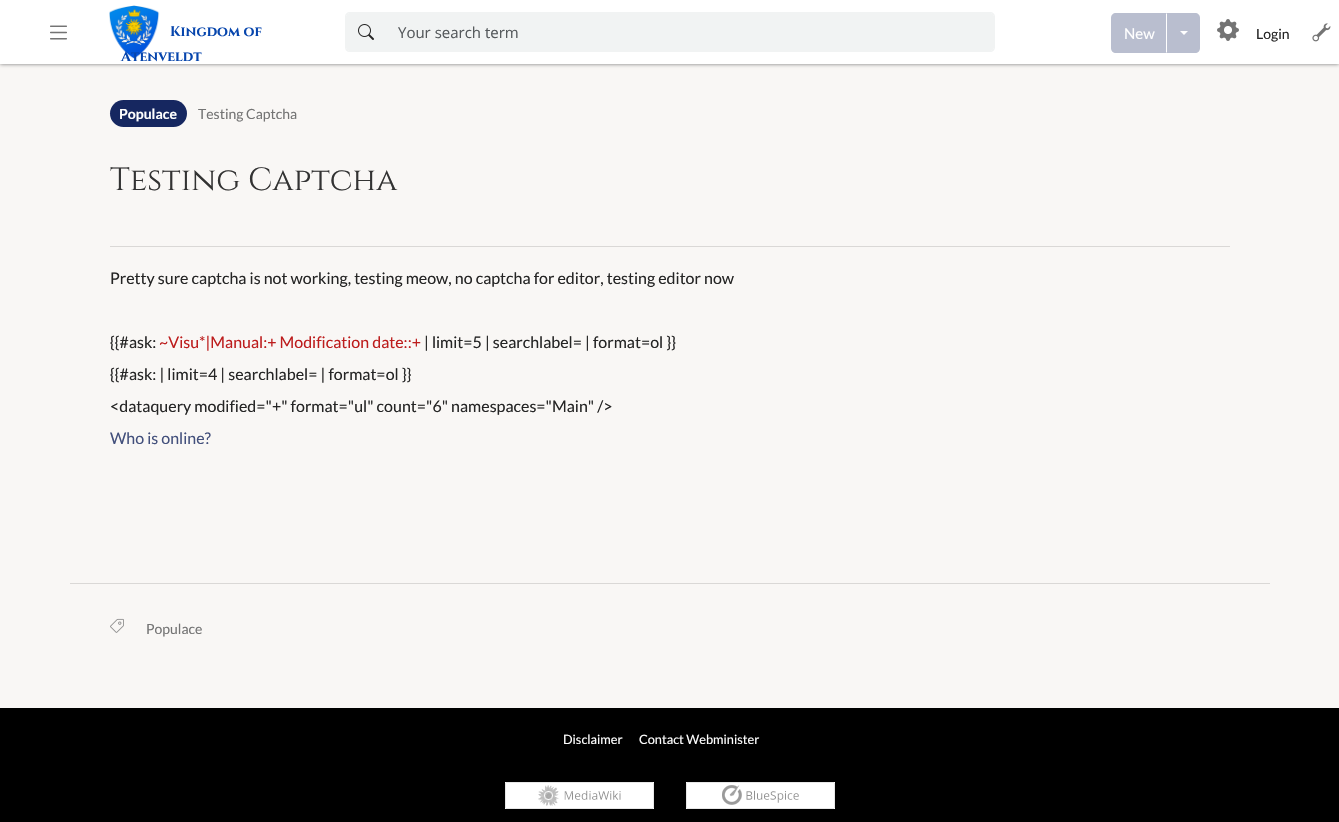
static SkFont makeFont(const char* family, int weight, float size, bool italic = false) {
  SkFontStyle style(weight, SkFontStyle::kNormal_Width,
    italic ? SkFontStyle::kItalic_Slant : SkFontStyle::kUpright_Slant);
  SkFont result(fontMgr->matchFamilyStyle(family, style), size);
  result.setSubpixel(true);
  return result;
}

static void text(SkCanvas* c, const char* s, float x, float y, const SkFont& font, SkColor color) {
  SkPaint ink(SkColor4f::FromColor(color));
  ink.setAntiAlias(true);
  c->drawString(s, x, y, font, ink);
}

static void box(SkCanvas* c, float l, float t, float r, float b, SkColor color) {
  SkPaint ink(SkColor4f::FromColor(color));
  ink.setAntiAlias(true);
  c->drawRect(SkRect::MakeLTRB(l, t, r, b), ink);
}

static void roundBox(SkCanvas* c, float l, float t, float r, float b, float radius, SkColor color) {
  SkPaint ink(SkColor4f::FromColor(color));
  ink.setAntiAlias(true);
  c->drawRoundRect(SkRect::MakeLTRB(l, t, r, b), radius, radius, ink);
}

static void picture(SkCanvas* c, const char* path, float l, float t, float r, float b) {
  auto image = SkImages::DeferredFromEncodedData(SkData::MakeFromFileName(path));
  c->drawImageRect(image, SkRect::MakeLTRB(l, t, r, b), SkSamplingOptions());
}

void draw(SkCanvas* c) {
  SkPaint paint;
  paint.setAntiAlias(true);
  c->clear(0xfff9f7f5);
  paint.setColor(0xff747474);
  paint.setMaskFilter(SkMaskFilter::MakeBlur(kNormal_SkBlurStyle, 2));
  c->drawRect(SkRect::MakeLTRB(0, 0, 1339, 64), paint);
  paint.setMaskFilter(nullptr);
  box(c, 0, 0, 1339, 64, 0xffffffff);
  picture(c, "img_01.png", 50, 25, 67, 40);
  picture(c, "img_02.png", 109, 5, 160, 59);
  SkFont face1 = makeFont("Cinzel", 700, 14);
  text(c, "Kingdom of", 170, 36, face1, 0xff0645ad);
  text(c, "Atenveldt", 121, 61, face1, 0xff0645ad);
  paint.setColor(0xfff1f3f3);
  c->drawPath(SkPathBuilder().moveTo(350, 13).lineTo(386, 13).lineTo(386, 51).lineTo(350, 51).cubicTo(348, 51, 346, 49, 346, 47).lineTo(346, 17).cubicTo(346, 15, 348, 13, 350, 13).close().detach(), paint);
  c->drawPath(SkPathBuilder(SkPathFillType::kEvenOdd).moveTo(350, 12).lineTo(386, 12).lineTo(386, 52).lineTo(350, 52).cubicTo(347, 52, 345, 50, 345, 47).lineTo(345, 17).cubicTo(345, 14, 347, 12, 350, 12).close().moveTo(350, 13).lineTo(386, 13).lineTo(386, 51).lineTo(350, 51).cubicTo(348, 51, 346, 49, 346, 47).lineTo(346, 17).cubicTo(346, 15, 348, 13, 350, 13).close().detach(), paint);
  picture(c, "img_03.png", 358, 24, 374, 40);
  c->drawPath(SkPathBuilder().moveTo(386, 13).lineTo(990, 13).cubicTo(992, 13, 994, 15, 994, 17).lineTo(994, 47).cubicTo(994, 49, 992, 51, 990, 51).lineTo(386, 51).close().detach(), paint);
  c->drawPath(SkPathBuilder(SkPathFillType::kEvenOdd).moveTo(386, 12).lineTo(990, 12).cubicTo(993, 12, 995, 14, 995, 17).lineTo(995, 47).cubicTo(995, 50, 993, 52, 990, 52).lineTo(386, 52).close().moveTo(386, 13).lineTo(990, 13).cubicTo(992, 13, 994, 15, 994, 17).lineTo(994, 47).cubicTo(994, 49, 992, 51, 990, 51).lineTo(386, 51).close().detach(), paint);
  SkFont face2 = makeFont("Open Sans", 400, 15);
  text(c, "Your search term", 398, 38, face2, 0xff55595c);
  paint.setColor(0xffb9becf);
  c->drawPath(SkPathBuilder().moveTo(1116, 13).lineTo(1167, 13).lineTo(1167, 53).lineTo(1116, 53).cubicTo(1113, 53, 1111, 51, 1111, 48).lineTo(1111, 18).cubicTo(1111, 15, 1113, 13, 1116, 13).close().detach(), paint);
  paint.setColor(0xffffffff);
  c->drawPath(SkPathBuilder().moveTo(1167, 13).lineTo(1166, 14).lineTo(1166, 52).lineTo(1167, 53).close().detach(), paint);
  SkFont face3 = makeFont("Lato", 400, 15);
  text(c, "New", 1124, 39, face3, 0xffffffff);
  paint.setColor(0xffb9becf);
  c->drawPath(SkPathBuilder().moveTo(1167, 13).lineTo(1195, 13).cubicTo(1198, 13, 1200, 15, 1200, 18).lineTo(1200, 48).cubicTo(1200, 51, 1198, 53, 1195, 53).lineTo(1167, 53).close().detach(), paint);
  paint.setColor(0xffffffff);
  c->drawPath(SkPathBuilder().moveTo(1180, 31).lineTo(1188, 31).lineTo(1184, 35).close().detach(), paint);
  picture(c, "img_04.png", 1217, 19, 1239, 41);
  SkFont face4 = makeFont("Lato", 400, 14);
  text(c, "Login", 1256, 39, face4, 0xff252525);
  picture(c, "img_05.png", 1312, 23, 1331, 42);
  box(c, 110, 246, 1230, 247, 0xffdad8d6);
  roundBox(c, 110, 100, 187, 127, 13.5f, 0xff162760);
  SkFont face5 = makeFont("Lato", 700, 14);
  text(c, "Populace", 119, 119, face5, 0xffffffff);
  text(c, "Testing Captcha", 198, 119, face4, 0xff747474);
  SkFont face6 = makeFont("Cinzel", 400, 32);
  text(c, "Testing Captcha", 110, 190, face6, 0xff333333);
  SkFont face7 = makeFont("Lato", 400, 16);
  text(c, "Pretty sure captcha is not working, testing meow, no captcha for editor, testing editor now", 110, 284, face7, 0xff252525);
  text(c, "{{#ask:", 110, 348, face7, 0xff252525);
  text(c, "~Visu*|Manual:+ Modification date::+", 159, 348, face7, 0xffbd1d1d);
  text(c, "| limit=5 | searchlabel= | format=ol }}", 424, 348, face7, 0xff252525);
  text(c, "{{#ask: | limit=4 | searchlabel= | format=ol }}", 110, 380, face7, 0xff252525);
  text(c, "<dataquery modified=\"+\" format=\"ul\" count=\"6\" namespaces=\"Main\" />", 110, 412, face7, 0xff252525);
  text(c, "Who is online?", 110, 444, face7, 0xff43507c);
  box(c, 70, 583, 1270, 584, 0xffdad8d6);
  picture(c, "img_06.png", 110, 618, 124, 633);
  text(c, "Populace", 146, 634, face4, 0xff747474);
  box(c, 0, 708, 1339, 822, 0xff000000);
  SkFont face8 = makeFont("Lato", 400, 12.75f);
  text(c, "Disclaimer", 563, 744, face8, 0xffffffff);
  text(c, "Contact Webminister", 639, 744, face8, 0xffffffff);
  picture(c, "img_07.png", 505, 782, 654, 809);
  picture(c, "img_08.png", 686, 782, 835, 809);
}
